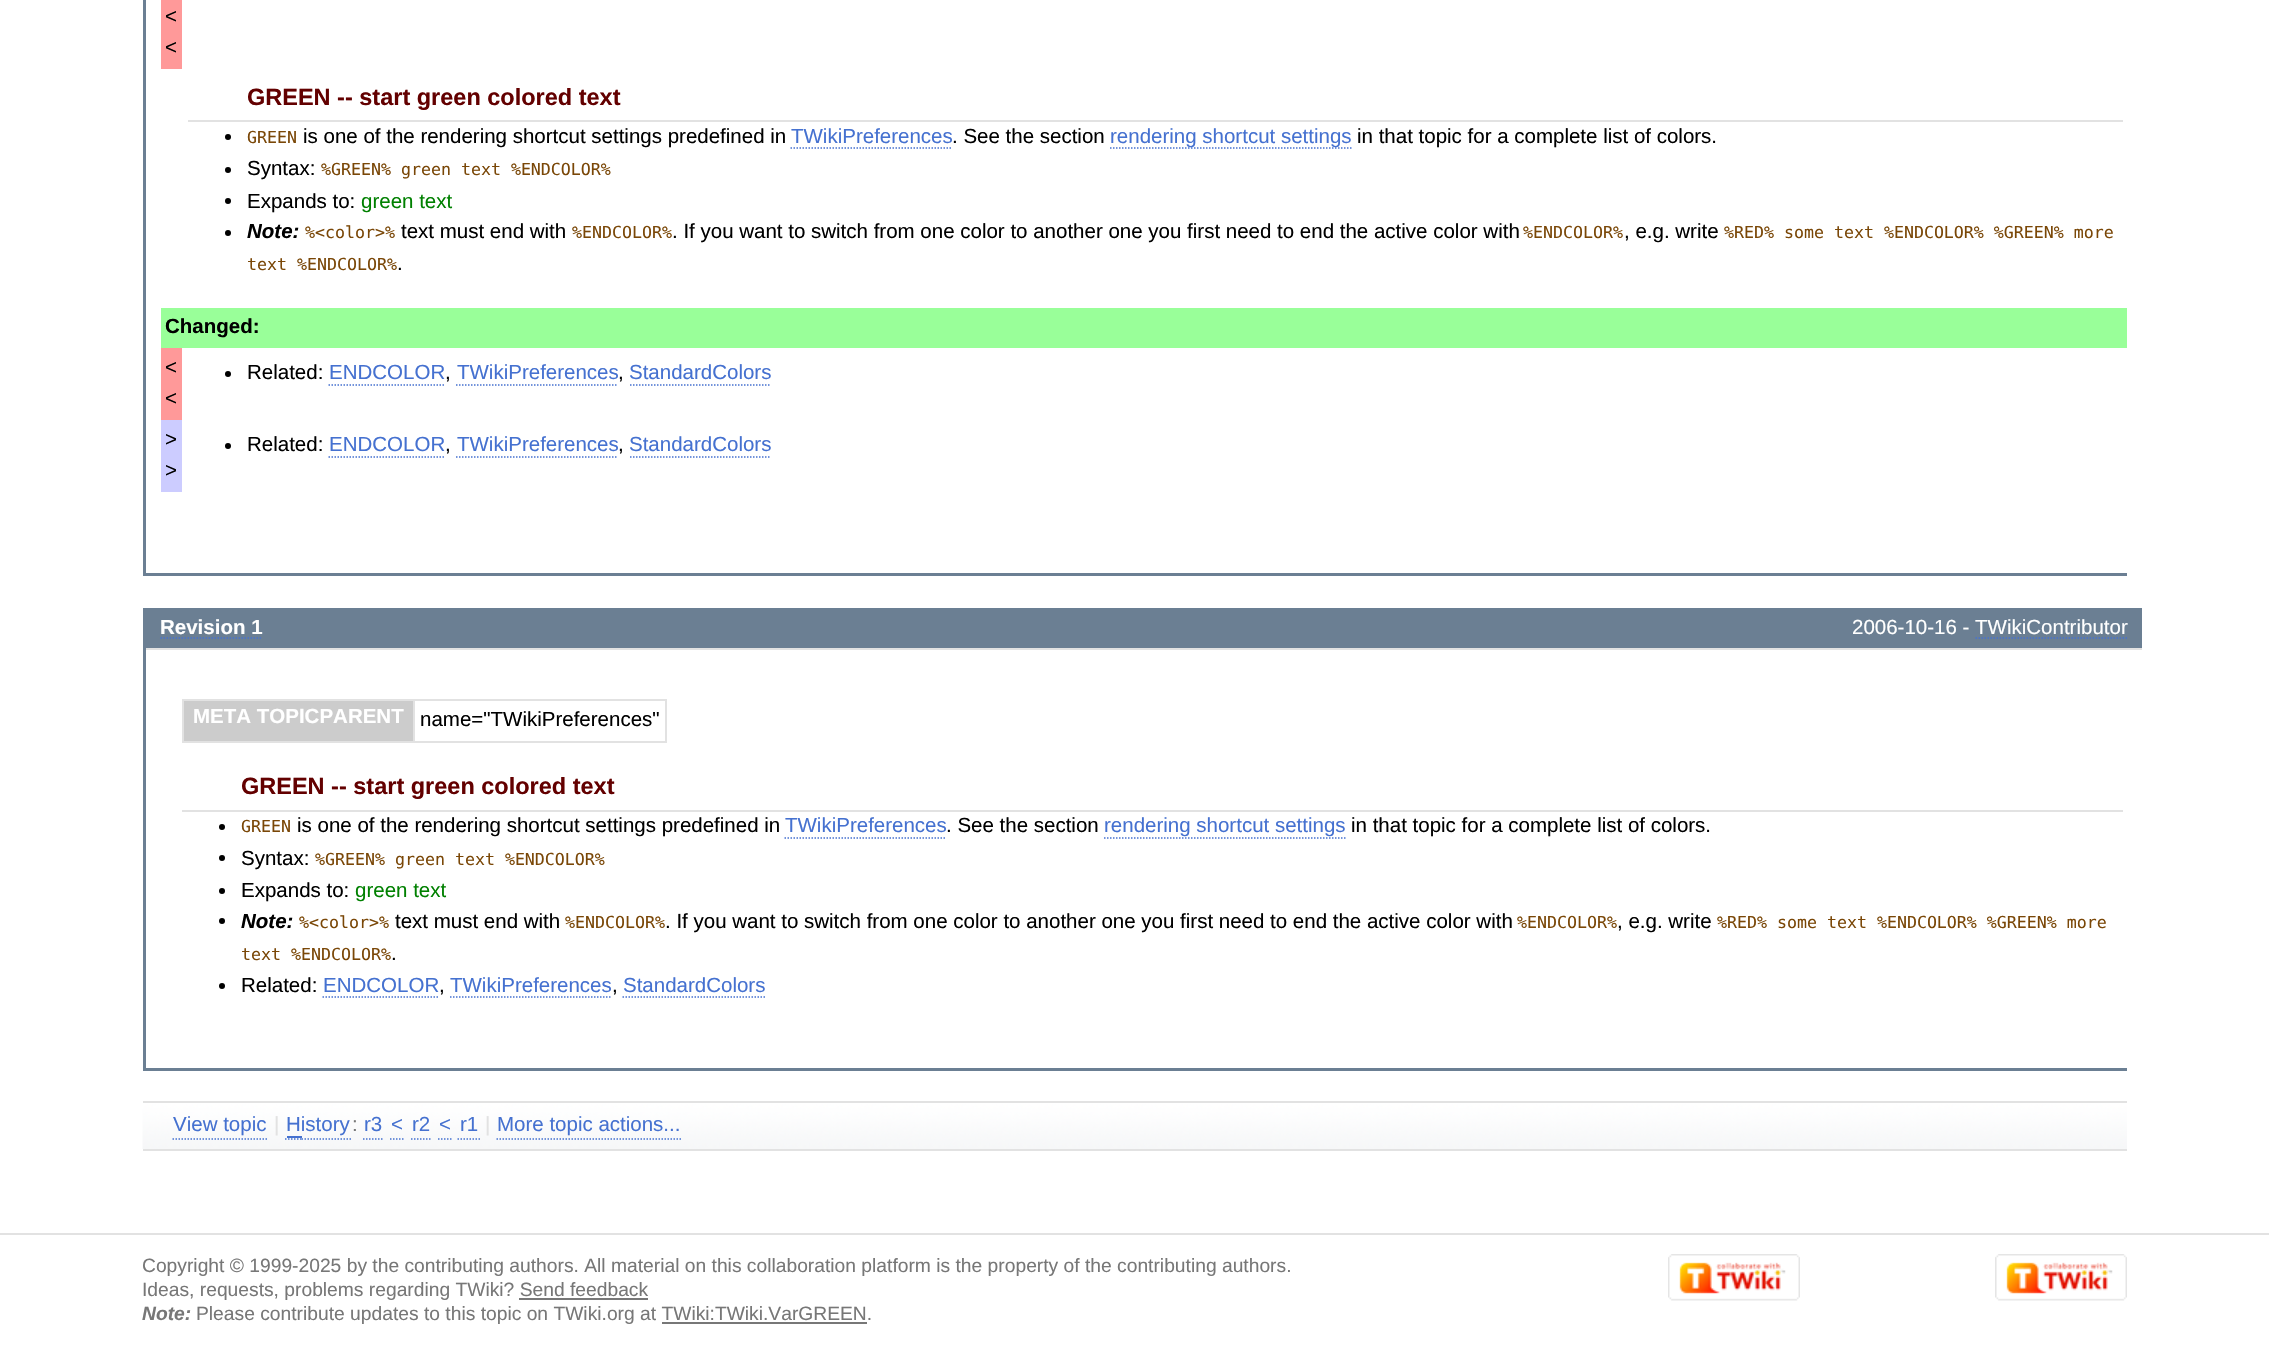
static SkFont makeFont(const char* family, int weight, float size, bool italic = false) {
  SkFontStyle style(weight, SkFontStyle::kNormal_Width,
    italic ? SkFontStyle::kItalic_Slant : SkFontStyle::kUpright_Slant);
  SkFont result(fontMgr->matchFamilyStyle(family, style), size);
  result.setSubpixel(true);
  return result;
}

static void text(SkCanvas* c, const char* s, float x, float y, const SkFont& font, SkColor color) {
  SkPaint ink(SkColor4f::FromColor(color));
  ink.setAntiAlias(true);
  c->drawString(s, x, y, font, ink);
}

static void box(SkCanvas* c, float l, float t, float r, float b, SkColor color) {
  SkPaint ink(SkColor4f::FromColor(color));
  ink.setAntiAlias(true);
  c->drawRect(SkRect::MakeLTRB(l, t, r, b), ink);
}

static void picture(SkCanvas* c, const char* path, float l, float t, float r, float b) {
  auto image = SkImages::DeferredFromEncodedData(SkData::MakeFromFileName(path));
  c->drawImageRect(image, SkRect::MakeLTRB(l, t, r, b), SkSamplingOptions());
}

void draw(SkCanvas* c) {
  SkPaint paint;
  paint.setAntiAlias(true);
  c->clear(0xffffffff);
  box(c, 143, 573, 2127, 576, 0xff6b7f93);
  box(c, 143, 0, 146, 576, 0xff6b7f93);
  box(c, 161, 0, 182, 69, 0xffff9999);
  SkFont face1 = makeFont("Liberation Sans", 400, 20.5f);
  text(c, "<", 165, 23, face1, 0xff000000);
  text(c, "<", 165, 54, face1, 0xff000000);
  box(c, 188, 120, 2123, 122, 0xffe2e2e2);
  SkFont face2 = makeFont("Liberation Sans", 700, 23.5f);
  text(c, "GREEN -- start green colored text", 247, 105, face2, 0xff630000);
  paint.setColor(0xff000000);
  c->drawCircle(228, 137, 3, paint);
  SkFont face3 = makeFont("DejaVu Sans Mono", 400, 16.6f);
  text(c, "GREEN", 247, 143, face3, 0xff7a4707);
  text(c, "is one of the rendering shortcut settings predefined in", 303, 143, face1, 0xff000000);
  text(c, "TWikiPreferences", 791, 143, face1, 0xff4571d0);
  paint.setStyle(SkPaint::kStroke_Style);
  paint.setStrokeWidth(1.5f);
  paint.setColor(0xff4571d0);
  paint.setPathEffect(SkDashPathEffect::Make({{1.5f, 1.5f}}, 0));
  c->drawPath(SkPathBuilder().moveTo(790.5f, 148).lineTo(952.5f, 148).detach(), paint);
  paint.setPathEffect(nullptr);
  text(c, ". See the section", 952, 143, face1, 0xff000000);
  paint.setPathEffect(SkDashPathEffect::Make({{1.5f, 1.5f}}, 0));
  c->drawPath(SkPathBuilder().moveTo(1110, 148).lineTo(1351.5f, 148).detach(), paint);
  paint.setPathEffect(nullptr);
  text(c, "rendering shortcut settings", 1110, 143, face1, 0xff4571d0);
  text(c, "in that topic for a complete list of colors.", 1357, 143, face1, 0xff000000);
  paint.setStyle(SkPaint::kFill_Style);
  paint.setColor(0xff000000);
  c->drawCircle(228, 170, 3, paint);
  text(c, "Syntax:", 247, 175, face1, 0xff000000);
  text(c, "%GREEN% green text %ENDCOLOR%", 321, 175, face3, 0xff7a4707);
  c->drawCircle(228, 201, 3, paint);
  text(c, "Expands to:", 247, 208, face1, 0xff000000);
  text(c, "green text", 361, 208, face1, 0xff008000);
  c->drawCircle(228, 233, 3, paint);
  SkFont face4 = makeFont("Liberation Sans", 700, 20.5f, true);
  text(c, "Note:", 247, 238, face4, 0xff000000);
  text(c, "%<color>%", 305, 238, face3, 0xff7a4707);
  text(c, "text must end with", 401, 238, face1, 0xff000000);
  text(c, "%ENDCOLOR%", 572, 238, face3, 0xff7a4707);
  text(c, ". If you want to switch from one color to another one you first need to end the active color with", 672, 238, face1, 0xff000000);
  text(c, "%ENDCOLOR%", 1523, 238, face3, 0xff7a4707);
  text(c, ", e.g. write", 1624, 238, face1, 0xff000000);
  text(c, "%RED% some text %ENDCOLOR% %GREEN% more", 1724, 238, face3, 0xff7a4707);
  text(c, "text %ENDCOLOR%", 247, 270, face3, 0xff7a4707);
  text(c, ".", 397, 270, face1, 0xff000000);
  box(c, 161, 308, 2127, 348, 0xff99ff99);
  SkFont face5 = makeFont("Liberation Sans", 700, 20.5f);
  text(c, "Changed:", 165, 333, face5, 0xff000000);
  box(c, 161, 348, 182, 420, 0xffff9999);
  text(c, "<", 165, 374, face1, 0xff000000);
  text(c, "<", 165, 405, face1, 0xff000000);
  c->drawCircle(228, 374, 3, paint);
  text(c, "Related:", 247, 379, face1, 0xff000000);
  text(c, "ENDCOLOR", 329, 379, face1, 0xff4571d0);
  paint.setStyle(SkPaint::kStroke_Style);
  paint.setColor(0xff4571d0);
  paint.setPathEffect(SkDashPathEffect::Make({{1.5f, 1.5f}}, 0));
  c->drawPath(SkPathBuilder().moveTo(328.5f, 385).lineTo(445.5f, 385).detach(), paint);
  paint.setPathEffect(nullptr);
  text(c, "TWikiPreferences", 457, 379, face1, 0xff4571d0);
  paint.setPathEffect(SkDashPathEffect::Make({{1.5f, 1.5f}}, 0));
  c->drawPath(SkPathBuilder().moveTo(456, 385).lineTo(618, 385).detach(), paint);
  paint.setPathEffect(nullptr);
  text(c, "StandardColors", 629, 379, face1, 0xff4571d0);
  paint.setPathEffect(SkDashPathEffect::Make({{1.5f, 1.5f}}, 0));
  c->drawPath(SkPathBuilder().moveTo(630, 385).lineTo(771, 385).detach(), paint);
  paint.setPathEffect(nullptr);
  text(c, ",", 445, 379, face1, 0xff000000);
  text(c, ",", 618, 379, face1, 0xff000000);
  box(c, 161, 420, 182, 492, 0xffccccff);
  text(c, ">", 165, 446, face1, 0xff000000);
  text(c, ">", 165, 477, face1, 0xff000000);
  paint.setStyle(SkPaint::kFill_Style);
  paint.setColor(0xff000000);
  c->drawCircle(228, 446, 3, paint);
  text(c, "Related:", 247, 451, face1, 0xff000000);
  text(c, "ENDCOLOR", 329, 451, face1, 0xff4571d0);
  paint.setStyle(SkPaint::kStroke_Style);
  paint.setColor(0xff4571d0);
  paint.setPathEffect(SkDashPathEffect::Make({{1.5f, 1.5f}}, 0));
  c->drawPath(SkPathBuilder().moveTo(328.5f, 457).lineTo(445.5f, 457).detach(), paint);
  paint.setPathEffect(nullptr);
  text(c, "TWikiPreferences", 457, 451, face1, 0xff4571d0);
  paint.setPathEffect(SkDashPathEffect::Make({{1.5f, 1.5f}}, 0));
  c->drawPath(SkPathBuilder().moveTo(456, 457).lineTo(618, 457).detach(), paint);
  paint.setPathEffect(nullptr);
  text(c, "StandardColors", 629, 451, face1, 0xff4571d0);
  paint.setPathEffect(SkDashPathEffect::Make({{1.5f, 1.5f}}, 0));
  c->drawPath(SkPathBuilder().moveTo(630, 457).lineTo(771, 457).detach(), paint);
  paint.setPathEffect(nullptr);
  text(c, ",", 445, 451, face1, 0xff000000);
  text(c, ",", 618, 451, face1, 0xff000000);
  box(c, 143, 1068, 2127, 1071, 0xff6b7f93);
  box(c, 143, 608, 146, 1071, 0xff6b7f93);
  box(c, 146, 608, 2142, 648, 0xff6b7f93);
  box(c, 146, 648, 2142, 650, 0xffe2e2e2);
  text(c, "Revision 1", 160, 634, face5, 0xffffffff);
  paint.setPathEffect(SkDashPathEffect::Make({{1.5f, 1.5f}}, 0));
  c->drawPath(SkPathBuilder().moveTo(160.5f, 638).lineTo(262.5f, 638).detach(), paint);
  paint.setPathEffect(nullptr);
  text(c, "2006-10-16 - TWikiContributor", 1852, 634, face1, 0xffffffff);
  paint.setPathEffect(SkDashPathEffect::Make({{1.5f, 1.5f}}, 0));
  c->drawPath(SkPathBuilder().moveTo(1975.5f, 638).lineTo(2127, 638).detach(), paint);
  paint.setPathEffect(nullptr);
  box(c, 182, 699, 666, 701, 0xffe2e2e2);
  box(c, 665, 699, 667, 743, 0xffe2e2e2);
  box(c, 182, 741, 666, 743, 0xffe2e2e2);
  box(c, 182, 699, 184, 743, 0xffe2e2e2);
  box(c, 184, 701, 413, 741, 0xffcccccc);
  text(c, "META TOPICPARENT", 193, 723, face5, 0xffffffff);
  box(c, 413, 699, 415, 743, 0xffe2e2e2);
  text(c, "name=\"TWikiPreferences\"", 420, 726, face1, 0xff000000);
  box(c, 182, 810, 2123, 812, 0xffe2e2e2);
  text(c, "GREEN -- start green colored text", 241, 794, face2, 0xff630000);
  paint.setStyle(SkPaint::kFill_Style);
  paint.setColor(0xff000000);
  c->drawCircle(222, 827, 3, paint);
  text(c, "GREEN", 241, 832, face3, 0xff7a4707);
  text(c, "is one of the rendering shortcut settings predefined in", 297, 832, face1, 0xff000000);
  text(c, "TWikiPreferences", 785, 832, face1, 0xff4571d0);
  paint.setStyle(SkPaint::kStroke_Style);
  paint.setColor(0xff4571d0);
  paint.setPathEffect(SkDashPathEffect::Make({{1.5f, 1.5f}}, 0));
  c->drawPath(SkPathBuilder().moveTo(784.5f, 838).lineTo(946.5f, 838).detach(), paint);
  paint.setPathEffect(nullptr);
  text(c, ". See the section", 946, 832, face1, 0xff000000);
  text(c, "rendering shortcut settings", 1104, 832, face1, 0xff4571d0);
  paint.setPathEffect(SkDashPathEffect::Make({{1.5f, 1.5f}}, 0));
  c->drawPath(SkPathBuilder().moveTo(1104, 838).lineTo(1345.5f, 838).detach(), paint);
  paint.setPathEffect(nullptr);
  text(c, "in that topic for a complete list of colors.", 1351, 832, face1, 0xff000000);
  paint.setStyle(SkPaint::kFill_Style);
  paint.setColor(0xff000000);
  c->drawCircle(222, 858, 3, paint);
  text(c, "Syntax:", 241, 865, face1, 0xff000000);
  text(c, "%GREEN% green text %ENDCOLOR%", 315, 865, face3, 0xff7a4707);
  c->drawCircle(222, 891, 3, paint);
  text(c, "Expands to:", 241, 897, face1, 0xff000000);
  text(c, "green text", 355, 897, face1, 0xff008000);
  c->drawCircle(222, 921, 3, paint);
  text(c, "Note:", 241, 928, face4, 0xff000000);
  text(c, "%<color>%", 299, 928, face3, 0xff7a4707);
  text(c, "text must end with", 395, 928, face1, 0xff000000);
  text(c, "%ENDCOLOR%", 565, 928, face3, 0xff7a4707);
  text(c, ". If you want to switch from one color to another one you first need to end the active color with", 665, 928, face1, 0xff000000);
  text(c, "%ENDCOLOR%", 1517, 928, face3, 0xff7a4707);
  text(c, ", e.g. write", 1617, 928, face1, 0xff000000);
  text(c, "%RED% some text %ENDCOLOR% %GREEN% more", 1717, 928, face3, 0xff7a4707);
  text(c, "text %ENDCOLOR%", 241, 960, face3, 0xff7a4707);
  text(c, ".", 391, 960, face1, 0xff000000);
  c->drawCircle(222, 986, 3, paint);
  text(c, "Related:", 241, 992, face1, 0xff000000);
  text(c, "ENDCOLOR", 323, 992, face1, 0xff4571d0);
  paint.setStyle(SkPaint::kStroke_Style);
  paint.setColor(0xff4571d0);
  paint.setPathEffect(SkDashPathEffect::Make({{1.5f, 1.5f}}, 0));
  c->drawPath(SkPathBuilder().moveTo(322.5f, 997).lineTo(439.5f, 997).detach(), paint);
  paint.setPathEffect(nullptr);
  text(c, "TWikiPreferences", 450, 992, face1, 0xff4571d0);
  paint.setPathEffect(SkDashPathEffect::Make({{1.5f, 1.5f}}, 0));
  c->drawPath(SkPathBuilder().moveTo(450, 997).lineTo(612, 997).detach(), paint);
  paint.setPathEffect(nullptr);
  text(c, "StandardColors", 623, 992, face1, 0xff4571d0);
  paint.setPathEffect(SkDashPathEffect::Make({{1.5f, 1.5f}}, 0));
  c->drawPath(SkPathBuilder().moveTo(622.5f, 997).lineTo(765, 997).detach(), paint);
  paint.setPathEffect(nullptr);
  text(c, ",", 439, 992, face1, 0xff000000);
  text(c, ",", 612, 992, face1, 0xff000000);
  box(c, 143, 1149, 2127, 1151, 0xffe2e2e2);
  picture(c, "img_01.png", 142, 1102, 2127, 1149);
  box(c, 143, 1101, 2127, 1103, 0xffe2e2e2);
  text(c, "View topic", 173, 1131, face1, 0xff4571d0);
  paint.setPathEffect(SkDashPathEffect::Make({{1.5f, 1.5f}}, 0));
  c->drawPath(SkPathBuilder().moveTo(172.5f, 1139).lineTo(268.5f, 1139).detach(), paint);
  paint.setPathEffect(nullptr);
  text(c, "|", 274, 1131, face1, 0xffe2e2e2);
  text(c, "History", 286, 1131, face1, 0xff4571d0);
  paint.setPathEffect(SkDashPathEffect::Make({{1.5f, 1.5f}}, 0));
  c->drawPath(SkPathBuilder().moveTo(285, 1139).lineTo(301.5f, 1139).detach(), paint);
  paint.setPathEffect(nullptr);
  paint.setPathEffect(SkDashPathEffect::Make({{1.5f, 1.5f}}, 0));
  c->drawPath(SkPathBuilder().moveTo(301.5f, 1139).lineTo(351, 1139).detach(), paint);
  paint.setPathEffect(nullptr);
  box(c, 287, 1136, 302, 1138, 0xff4571d0);
  text(c, ":", 352, 1131, face1, 0xff777777);
  text(c, "r3", 364, 1131, face1, 0xff4571d0);
  paint.setPathEffect(SkDashPathEffect::Make({{1.5f, 1.5f}}, 0));
  c->drawPath(SkPathBuilder().moveTo(363, 1139).lineTo(384, 1139).detach(), paint);
  paint.setPathEffect(nullptr);
  text(c, "<", 391, 1131, face1, 0xff4571d0);
  paint.setPathEffect(SkDashPathEffect::Make({{1.5f, 1.5f}}, 0));
  c->drawPath(SkPathBuilder().moveTo(390, 1139).lineTo(405, 1139).detach(), paint);
  paint.setPathEffect(nullptr);
  text(c, "r2", 412, 1131, face1, 0xff4571d0);
  paint.setPathEffect(SkDashPathEffect::Make({{1.5f, 1.5f}}, 0));
  c->drawPath(SkPathBuilder().moveTo(411, 1139).lineTo(432, 1139).detach(), paint);
  paint.setPathEffect(nullptr);
  text(c, "<", 439, 1131, face1, 0xff4571d0);
  paint.setPathEffect(SkDashPathEffect::Make({{1.5f, 1.5f}}, 0));
  c->drawPath(SkPathBuilder().moveTo(438, 1139).lineTo(453, 1139).detach(), paint);
  paint.setPathEffect(nullptr);
  text(c, "r1", 460, 1131, face1, 0xff4571d0);
  paint.setPathEffect(SkDashPathEffect::Make({{1.5f, 1.5f}}, 0));
  c->drawPath(SkPathBuilder().moveTo(457.5f, 1139).lineTo(480, 1139).detach(), paint);
  paint.setPathEffect(nullptr);
  text(c, "|", 485, 1131, face1, 0xffe2e2e2);
  text(c, "More topic actions...", 497, 1131, face1, 0xff4571d0);
  paint.setPathEffect(SkDashPathEffect::Make({{1.5f, 1.5f}}, 0));
  c->drawPath(SkPathBuilder().moveTo(496.5f, 1139).lineTo(682.5f, 1139).detach(), paint);
  paint.setPathEffect(nullptr);
  box(c, 0, 1233, 2269, 1235, 0xffe2e2e2);
  SkFont face6 = makeFont("Liberation Sans", 400, 19.25f);
  text(c, "Copyright © 1999-2025 by the contributing authors. All material on this collaboration platform is the property of the contributing authors.", 142, 1272, face6, 0xff777777);
  picture(c, "img_02.png", 1668, 1254, 1800, 1301);
  picture(c, "img_03.png", 1995, 1254, 2127, 1301);
  text(c, "Ideas, requests, problems regarding TWiki? Send feedback", 142, 1296, face6, 0xff777777);
  box(c, 519, 1298, 648, 1300, 0xff777777);
  SkFont face7 = makeFont("Liberation Sans", 700, 19.25f, true);
  text(c, "Note:", 142, 1320, face7, 0xff777777);
  text(c, "Please contribute updates to this topic on TWiki.org at TWiki:TWiki.VarGREEN.", 196, 1320, face6, 0xff777777);
  box(c, 662, 1322, 867, 1324, 0xff777777);
}
